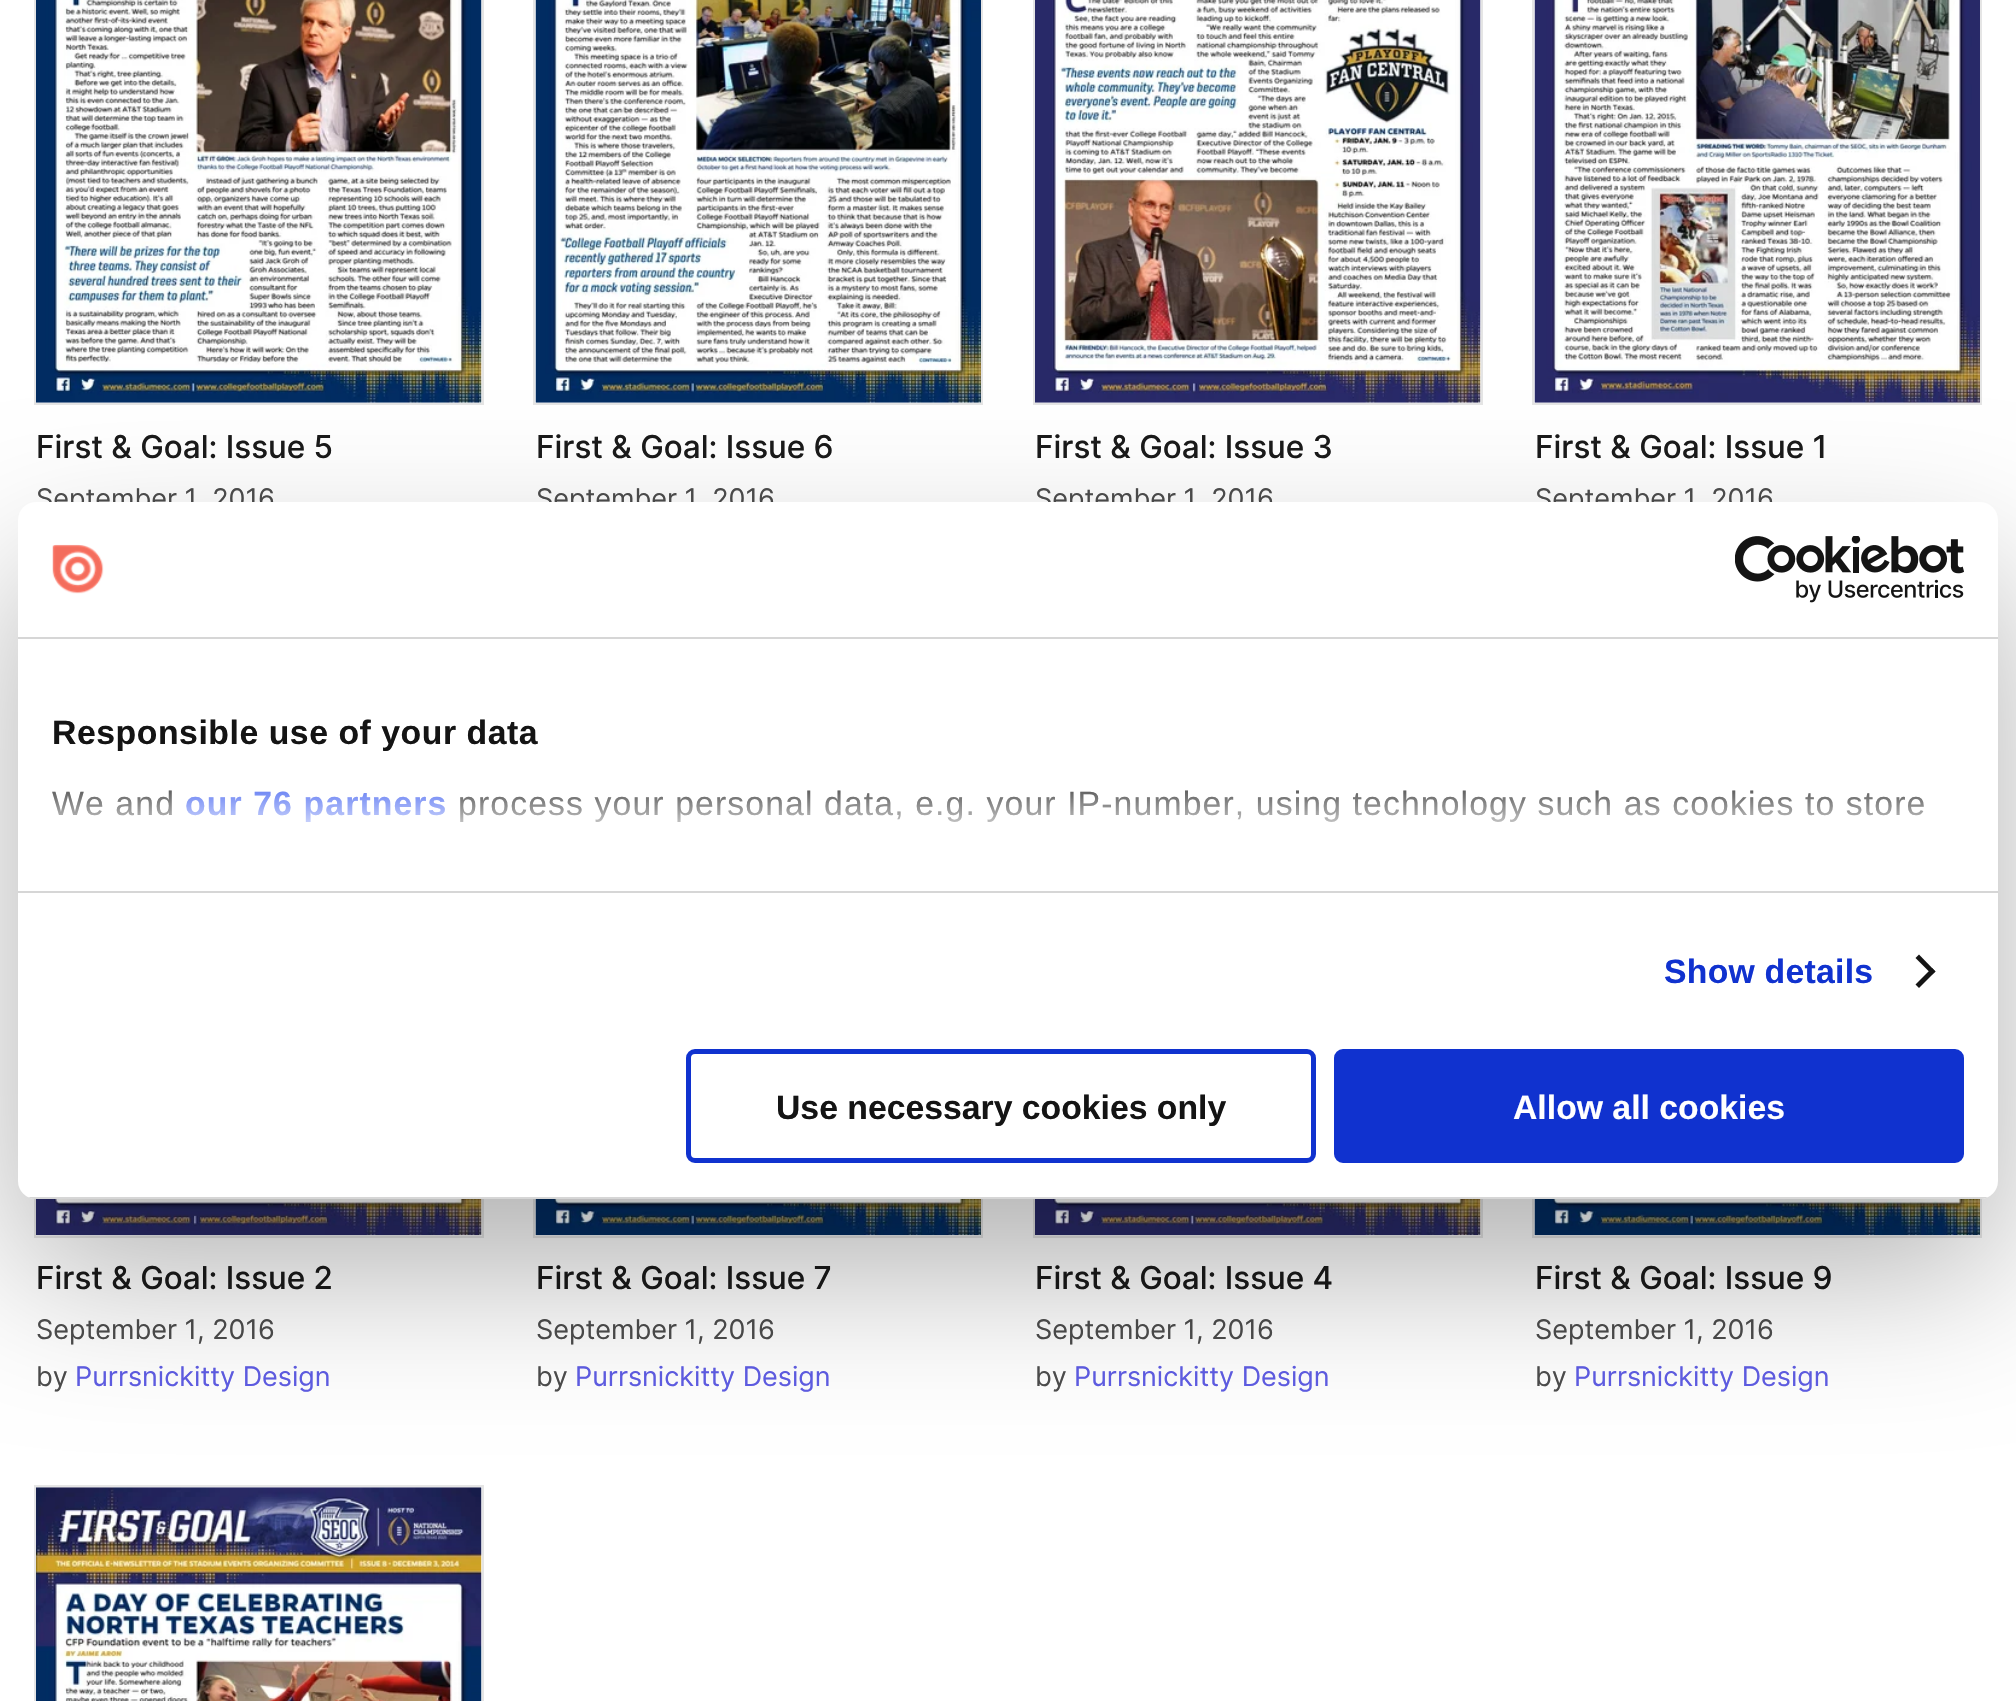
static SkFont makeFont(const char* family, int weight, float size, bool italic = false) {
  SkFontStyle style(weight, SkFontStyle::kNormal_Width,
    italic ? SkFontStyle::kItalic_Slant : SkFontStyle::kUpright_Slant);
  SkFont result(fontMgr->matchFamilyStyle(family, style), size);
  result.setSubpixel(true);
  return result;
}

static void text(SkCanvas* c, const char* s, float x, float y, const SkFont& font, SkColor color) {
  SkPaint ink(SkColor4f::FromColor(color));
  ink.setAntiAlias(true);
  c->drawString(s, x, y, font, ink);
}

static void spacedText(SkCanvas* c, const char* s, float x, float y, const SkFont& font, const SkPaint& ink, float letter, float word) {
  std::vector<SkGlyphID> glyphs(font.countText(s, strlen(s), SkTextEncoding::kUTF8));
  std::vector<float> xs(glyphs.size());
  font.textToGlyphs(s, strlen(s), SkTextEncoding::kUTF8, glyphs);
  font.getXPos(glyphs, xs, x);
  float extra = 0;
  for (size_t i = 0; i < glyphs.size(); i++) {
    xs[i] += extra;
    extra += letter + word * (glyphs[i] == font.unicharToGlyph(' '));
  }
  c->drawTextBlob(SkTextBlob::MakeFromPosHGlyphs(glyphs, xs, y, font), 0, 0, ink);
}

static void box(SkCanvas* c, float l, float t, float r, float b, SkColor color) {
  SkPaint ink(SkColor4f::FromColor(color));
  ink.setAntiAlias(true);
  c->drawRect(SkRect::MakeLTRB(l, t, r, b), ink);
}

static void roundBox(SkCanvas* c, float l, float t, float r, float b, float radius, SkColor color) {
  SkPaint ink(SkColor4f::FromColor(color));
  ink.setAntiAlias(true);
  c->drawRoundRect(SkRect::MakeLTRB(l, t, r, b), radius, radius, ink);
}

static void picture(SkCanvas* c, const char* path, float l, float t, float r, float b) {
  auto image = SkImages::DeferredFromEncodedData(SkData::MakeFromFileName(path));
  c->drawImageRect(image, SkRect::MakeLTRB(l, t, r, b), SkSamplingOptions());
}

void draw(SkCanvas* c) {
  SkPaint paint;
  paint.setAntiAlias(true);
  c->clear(0xffffffff);
  paint.setStyle(SkPaint::kStroke_Style);
  paint.setStrokeWidth(2);
  paint.setColor(0xffe5e5e5);
  c->drawRect(SkRect::MakeLTRB(35, -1, 483, 404), paint);
  picture(c, "img_01.png", 36, 0, 482, 403);
  SkFont face1 = makeFont("Inter", 500, 31.5f);
  text(c, "First & Goal: Issue 5", 36, 458, face1, 0xff1a1a1a);
  SkFont face2 = makeFont("Inter", 400, 27);
  text(c, "September 1, 2016", 36, 508, face2, 0xff4d4d4d);
  c->drawRect(SkRect::MakeLTRB(534, -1, 982, 404), paint);
  picture(c, "img_02.png", 535, 0, 981, 403);
  text(c, "First & Goal: Issue 6", 536, 458, face1, 0xff1a1a1a);
  text(c, "September 1, 2016", 536, 508, face2, 0xff4d4d4d);
  c->drawRect(SkRect::MakeLTRB(1034, -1, 1482, 404), paint);
  picture(c, "img_03.png", 1035, 0, 1481, 403);
  text(c, "First & Goal: Issue 3", 1035, 458, face1, 0xff1a1a1a);
  text(c, "September 1, 2016", 1035, 508, face2, 0xff4d4d4d);
  c->drawRect(SkRect::MakeLTRB(1533, -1, 1981, 404), paint);
  picture(c, "img_04.png", 1534, 0, 1980, 403);
  text(c, "First & Goal: Issue 1", 1535, 458, face1, 0xff1a1a1a);
  text(c, "September 1, 2016", 1535, 508, face2, 0xff4d4d4d);
  c->drawRect(SkRect::MakeLTRB(35, 654, 483, 1237), paint);
  picture(c, "img_05.png", 36, 1199, 482, 1236);
  text(c, "First & Goal: Issue 2", 36, 1289, face1, 0xff1a1a1a);
  text(c, "September 1, 2016", 36, 1339, face2, 0xff4d4d4d);
  text(c, "by", 36, 1386, face2, 0xff4d4d4d);
  text(c, "Purrsnickitty Design", 75, 1386, face2, 0xff5f5de4);
  c->drawRect(SkRect::MakeLTRB(534, 654, 982, 1237), paint);
  picture(c, "img_06.png", 535, 1199, 981, 1236);
  text(c, "First & Goal: Issue 7", 536, 1289, face1, 0xff1a1a1a);
  text(c, "September 1, 2016", 536, 1339, face2, 0xff4d4d4d);
  text(c, "by", 536, 1386, face2, 0xff4d4d4d);
  text(c, "Purrsnickitty Design", 575, 1386, face2, 0xff5f5de4);
  c->drawRect(SkRect::MakeLTRB(1034, 654, 1482, 1237), paint);
  picture(c, "img_07.png", 1035, 1199, 1481, 1236);
  text(c, "First & Goal: Issue 4", 1035, 1289, face1, 0xff1a1a1a);
  text(c, "September 1, 2016", 1035, 1339, face2, 0xff4d4d4d);
  text(c, "by", 1035, 1386, face2, 0xff4d4d4d);
  text(c, "Purrsnickitty Design", 1074, 1386, face2, 0xff5f5de4);
  c->drawRect(SkRect::MakeLTRB(1533, 654, 1981, 1237), paint);
  picture(c, "img_08.png", 1534, 1199, 1980, 1236);
  text(c, "First & Goal: Issue 9", 1535, 1289, face1, 0xff1a1a1a);
  text(c, "September 1, 2016", 1535, 1339, face2, 0xff4d4d4d);
  text(c, "by", 1535, 1386, face2, 0xff4d4d4d);
  text(c, "Purrsnickitty Design", 1574, 1386, face2, 0xff5f5de4);
  c->drawRect(SkRect::MakeLTRB(35, 1486, 483, 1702), paint);
  picture(c, "img_09.png", 36, 1487, 482, 1701);
  paint.setStyle(SkPaint::kFill_Style);
  paint.setColor(0x4d000000);
  paint.setMaskFilter(SkMaskFilter::MakeBlur(kNormal_SkBlurStyle, 76.5f));
  c->drawRoundRect(SkRect::MakeLTRB(18, 574, 1998, 1271), 18, 18, paint);
  paint.setMaskFilter(nullptr);
  roundBox(c, 18, 502, 1998, 1199, 18, 0xffffffff);
  box(c, 18, 637, 1998, 639, 0xffd6d6d6);
  picture(c, "img_10.png", 52, 544, 104, 594);
  picture(c, "img_11.png", 1735, 536, 1964, 603);
  box(c, 18, 891, 1998, 893, 0xffd6d6d6);
  SkFont face3 = makeFont("Liberation Sans", 700, 33.75f);
  paint.setColor(0xff141414);
  spacedText(c, "Responsible use of your data", 52, 744, face3, paint, 0.55f, 0);
  SkFont face4 = makeFont("Liberation Sans", 400, 33.75f);
  spacedText(c, "We and", 52, 815, face4, paint, 1.12f, 0);
  paint.setColor(0xff2a4eef);
  spacedText(c, "our 76 partners", 185, 815, face3, paint, 1.12f, 0);
  paint.setColor(0xff141414);
  spacedText(c, "process your personal data, e.g. your IP-number, using technology such as cookies to store", 458, 815, face4, paint, 1.12f, 0);
  {
    const SkColor colors[] = {0xffffffff, 0xccffffff, 0x00ffffff};
    const float stops[] = {0, 0.5f, 1};
    const SkPoint ends[] = {{993, 891}, {993, 765}};
    paint.setShader(SkGradientShader::MakeLinear(ends, colors, stops, 3, SkTileMode::kClamp));
    paint.setAlpha(255);
  }
  c->drawRect(SkRect::MakeLTRB(52, 790, 1925, 822), paint);
  paint.setShader(nullptr);
  paint.setColor(0xff1032cf);
  spacedText(c, "Show details", 1664, 983, face3, paint, 0.25f, 0);
  paint.setColor(0xff141414);
  c->drawPath(SkPathBuilder().moveTo(1919, 954.5f).lineTo(1935.5f, 971.5f).lineTo(1932, 974.5f).lineTo(1915.5f, 958).close().detach(), paint);
  c->drawPath(SkPathBuilder().moveTo(1932, 968).lineTo(1935.5f, 971.5f).lineTo(1919, 988).lineTo(1915.5f, 984.5f).close().detach(), paint);
  c->save();
  c->clipPath(SkPathBuilder().moveTo(36, 502).lineTo(1980, 502).cubicTo(1990, 502, 1998, 510, 1998, 520).lineTo(1998, 1181).cubicTo(1998, 1191, 1990, 1199, 1980, 1199).lineTo(36, 1199).cubicTo(26, 1199, 18, 1191, 18, 1181).lineTo(18, 520).cubicTo(18, 510, 26, 502, 36, 502).close().detach(), true);
  box(c, 28, 1197, 1988, 1199, 0xffd6d6d6);
  c->restore();
  paint.setStyle(SkPaint::kStroke_Style);
  paint.setStrokeWidth(5);
  paint.setColor(0xff1032cf);
  c->drawRoundRect(SkRect::MakeLTRB(688.5f, 1051.5f, 1313.5f, 1160.5f), 6.5f, 6.5f, paint);
  text(c, "Use necessary cookies only", 776, 1119, face3, 0xff141414);
  paint.setStyle(SkPaint::kFill_Style);
  c->drawRoundRect(SkRect::MakeLTRB(1336.5f, 1051.5f, 1961.5f, 1160.5f), 6.5f, 6.5f, paint);
  paint.setStyle(SkPaint::kStroke_Style);
  c->drawRoundRect(SkRect::MakeLTRB(1336.5f, 1051.5f, 1961.5f, 1160.5f), 6.5f, 6.5f, paint);
  text(c, "Allow all cookies", 1513, 1119, face3, 0xffffffff);
}
